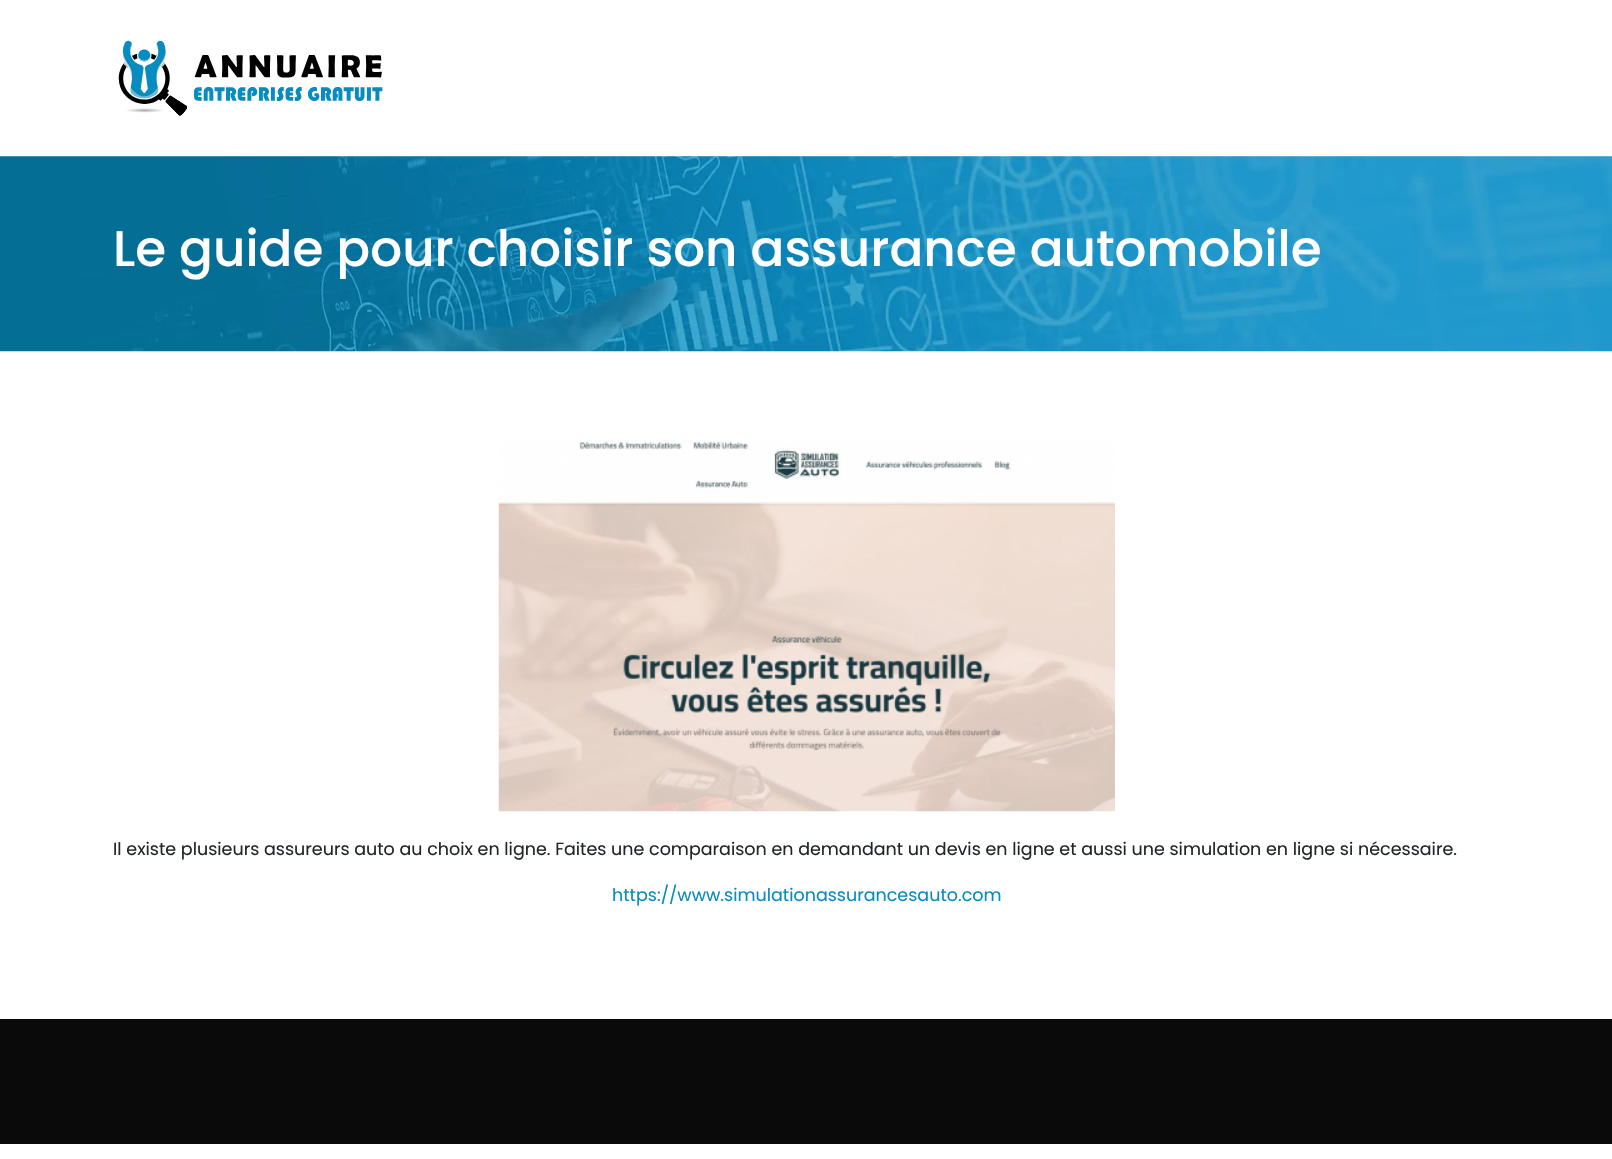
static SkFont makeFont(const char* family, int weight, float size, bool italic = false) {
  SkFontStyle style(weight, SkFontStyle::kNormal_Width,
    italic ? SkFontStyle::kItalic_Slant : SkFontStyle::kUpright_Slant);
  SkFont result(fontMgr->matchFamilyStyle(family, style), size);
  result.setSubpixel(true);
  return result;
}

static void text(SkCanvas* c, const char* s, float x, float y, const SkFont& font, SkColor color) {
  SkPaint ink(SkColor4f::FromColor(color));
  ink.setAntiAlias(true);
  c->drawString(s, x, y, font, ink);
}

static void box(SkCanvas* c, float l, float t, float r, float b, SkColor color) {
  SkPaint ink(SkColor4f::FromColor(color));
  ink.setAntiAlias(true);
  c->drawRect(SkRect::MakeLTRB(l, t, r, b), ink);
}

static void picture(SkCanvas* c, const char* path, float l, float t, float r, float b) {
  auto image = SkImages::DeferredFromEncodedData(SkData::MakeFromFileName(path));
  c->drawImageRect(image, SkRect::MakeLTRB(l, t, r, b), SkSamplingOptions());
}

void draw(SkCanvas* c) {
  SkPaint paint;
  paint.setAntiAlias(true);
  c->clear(0xffffffff);
  c->save();
  c->clipRect(SkRect::MakeLTRB(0, 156, 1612, 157));
  paint.setColor(0x1a000000);
  paint.setMaskFilter(SkMaskFilter::MakeBlur(kNormal_SkBlurStyle, 8));
  c->drawRect(SkRect::MakeLTRB(0, 3, 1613, 159), paint);
  paint.setMaskFilter(nullptr);
  c->restore();
  picture(c, "img_01.png", 118, 40, 383, 116);
  picture(c, "img_02.png", 0, 156, 1612, 352);
  SkFont face1 = makeFont("Poppins", 500, 50);
  text(c, "Le guide pour choisir son assurance automobile", 113, 266, face1, 0xffffffff);
  picture(c, "img_03.png", 498, 440, 1115, 812);
  SkFont face2 = makeFont("Poppins", 400, 17.5f);
  text(c, "Il existe plusieurs assureurs auto au choix en ligne. Faites une comparaison en demandant un devis en ligne et aussi une simulation en ligne si nécessaire.", 113, 855, face2, 0xff212529);
  text(c, "https://www.simulationassurancesauto.com", 612, 901, face2, 0xff068cbf);
  box(c, 0, 1019, 1612, 1144, 0xff0a0a0a);
}
